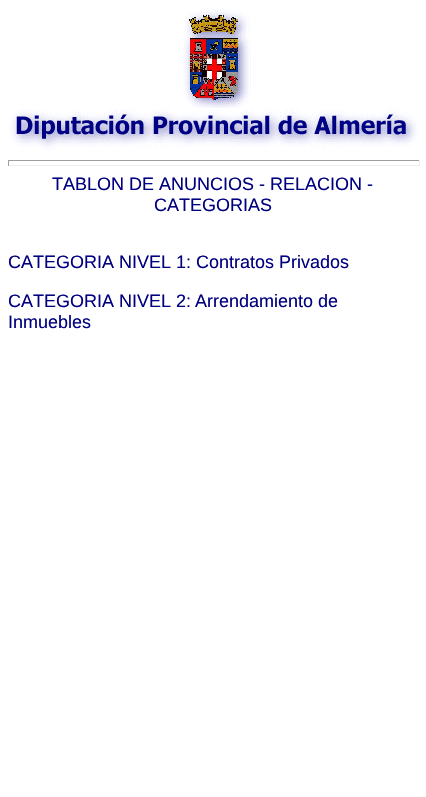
static SkFont makeFont(const char* family, int weight, float size, bool italic = false) {
  SkFontStyle style(weight, SkFontStyle::kNormal_Width,
    italic ? SkFontStyle::kItalic_Slant : SkFontStyle::kUpright_Slant);
  SkFont result(fontMgr->matchFamilyStyle(family, style), size);
  result.setSubpixel(true);
  return result;
}

static void text(SkCanvas* c, const char* s, float x, float y, const SkFont& font, SkColor color) {
  SkPaint ink(SkColor4f::FromColor(color));
  ink.setAntiAlias(true);
  c->drawString(s, x, y, font, ink);
}

static void box(SkCanvas* c, float l, float t, float r, float b, SkColor color) {
  SkPaint ink(SkColor4f::FromColor(color));
  ink.setAntiAlias(true);
  c->drawRect(SkRect::MakeLTRB(l, t, r, b), ink);
}

static void picture(SkCanvas* c, const char* path, float l, float t, float r, float b) {
  auto image = SkImages::DeferredFromEncodedData(SkData::MakeFromFileName(path));
  c->drawImageRect(image, SkRect::MakeLTRB(l, t, r, b), SkSamplingOptions());
}

void draw(SkCanvas* c) {
  SkPaint paint;
  paint.setAntiAlias(true);
  c->clear(0xffffffff);
  picture(c, "img_01.png", 183, 8, 251, 108);
  picture(c, "img_02.png", 10, 108, 420, 152);
  box(c, 8, 160, 420, 161, 0xff9f9f9f);
  box(c, 419, 160, 420, 166, 0xffeeeeee);
  box(c, 8, 165, 420, 166, 0xffeeeeee);
  box(c, 8, 160, 9, 166, 0xff9f9f9f);
  SkFont face1 = makeFont("Liberation Sans", 400, 18);
  text(c, "TABLON DE ANUNCIOS - RELACION -", 52, 190, face1, 0xff000080);
  text(c, "CATEGORIAS", 154, 211, face1, 0xff000080);
  text(c, "CATEGORIA NIVEL 1: Contratos Privados", 8, 268, face1, 0xff000080);
  text(c, "CATEGORIA NIVEL 2:", 8, 307, face1, 0xff000080);
  text(c, "Arrendamiento de", 195, 307, face1, 0xff000080);
  text(c, "Inmuebles", 8, 328, face1, 0xff000080);
}
